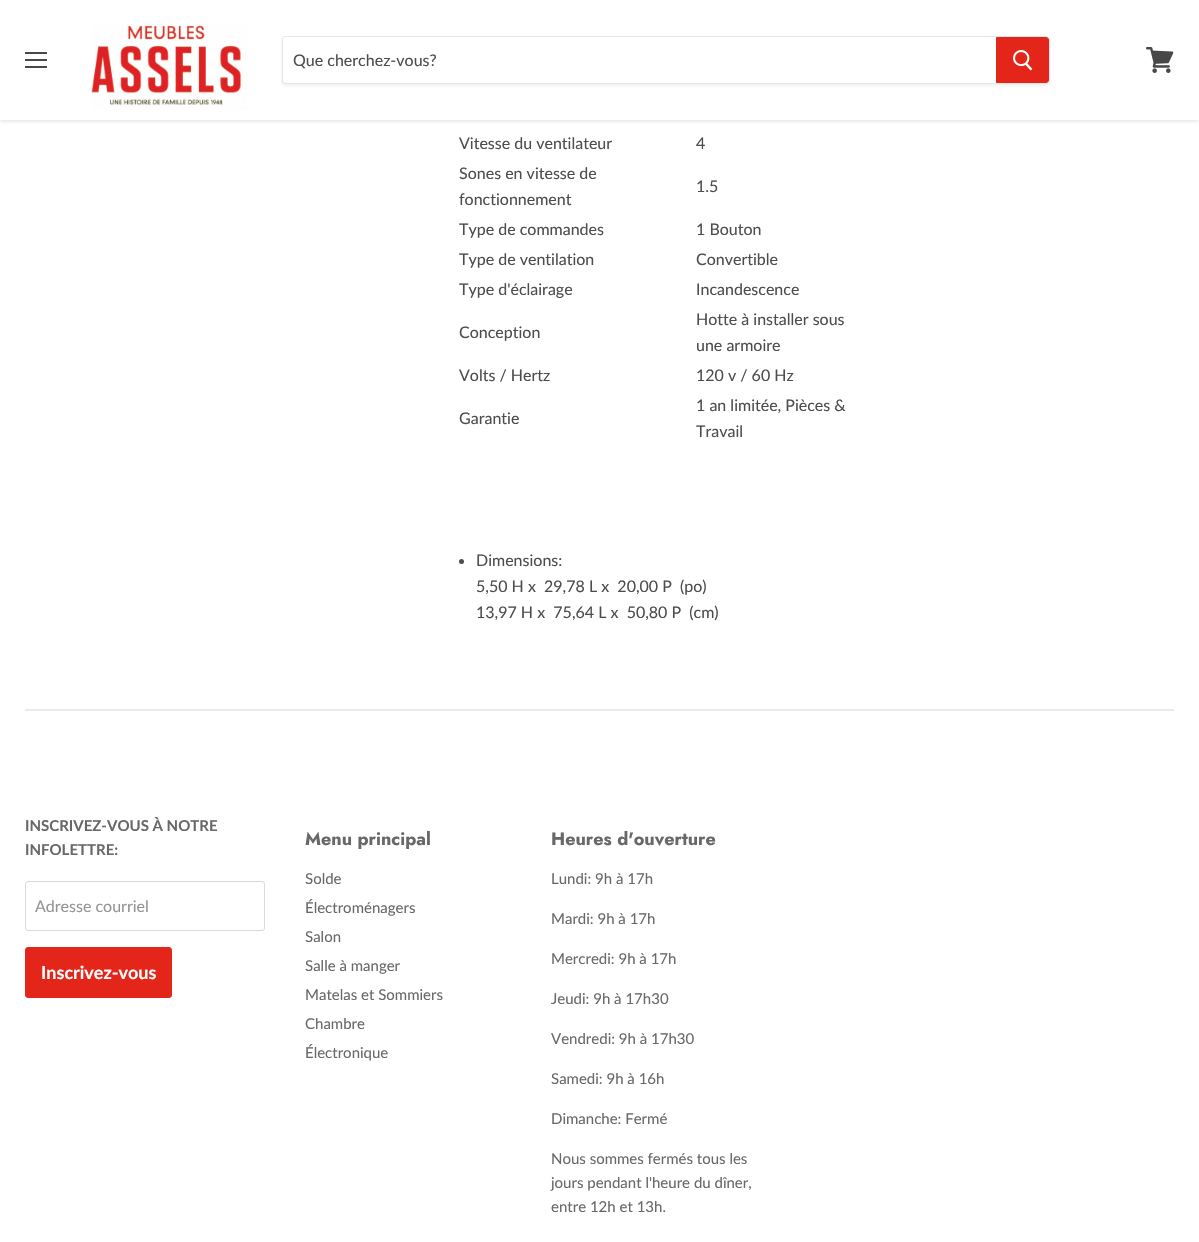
static SkFont makeFont(const char* family, int weight, float size, bool italic = false) {
  SkFontStyle style(weight, SkFontStyle::kNormal_Width,
    italic ? SkFontStyle::kItalic_Slant : SkFontStyle::kUpright_Slant);
  SkFont result(fontMgr->matchFamilyStyle(family, style), size);
  result.setSubpixel(true);
  return result;
}

static void text(SkCanvas* c, const char* s, float x, float y, const SkFont& font, SkColor color) {
  SkPaint ink(SkColor4f::FromColor(color));
  ink.setAntiAlias(true);
  c->drawString(s, x, y, font, ink);
}

static void box(SkCanvas* c, float l, float t, float r, float b, SkColor color) {
  SkPaint ink(SkColor4f::FromColor(color));
  ink.setAntiAlias(true);
  c->drawRect(SkRect::MakeLTRB(l, t, r, b), ink);
}

static void picture(SkCanvas* c, const char* path, float l, float t, float r, float b) {
  auto image = SkImages::DeferredFromEncodedData(SkData::MakeFromFileName(path));
  c->drawImageRect(image, SkRect::MakeLTRB(l, t, r, b), SkSamplingOptions());
}

void draw(SkCanvas* c) {
  SkPaint paint;
  paint.setAntiAlias(true);
  c->clear(0xffffffff);
  paint.setColor(0x407f7f7f);
  paint.setMaskFilter(SkMaskFilter::MakeBlur(kNormal_SkBlurStyle, 2));
  c->drawRect(SkRect::MakeLTRB(0, 63, 1199, 121), paint);
  paint.setMaskFilter(nullptr);
  box(c, 0, 60, 1199, 120, 0xffffffff);
  box(c, 25, 52, 47, 54, 0xff484848);
  box(c, 25, 59, 47, 61, 0xff484848);
  box(c, 25, 66, 47, 68, 0xff484848);
  picture(c, "img_01.png", 91, 25, 248, 110);
  c->save();
  c->clipPath(SkPathBuilder(SkPathFillType::kEvenOdd).moveTo(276, 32).lineTo(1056, 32).lineTo(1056, 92).lineTo(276, 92).close().moveTo(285, 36).lineTo(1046, 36).cubicTo(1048, 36, 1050, 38, 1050, 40).lineTo(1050, 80).cubicTo(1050, 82, 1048, 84, 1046, 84).lineTo(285, 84).cubicTo(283.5f, 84, 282, 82.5f, 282, 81).lineTo(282, 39).cubicTo(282, 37.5f, 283.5f, 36, 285, 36).close().detach(), true);
  paint.setColor(0x1c7f7f7f);
  paint.setMaskFilter(SkMaskFilter::MakeBlur(kNormal_SkBlurStyle, 1.5f));
  c->drawRoundRect(SkRect::MakeLTRB(282, 38, 1050, 86), 4, 4, paint);
  paint.setMaskFilter(nullptr);
  c->restore();
  paint.setStyle(SkPaint::kStroke_Style);
  paint.setStrokeWidth(1);
  paint.setColor(0x337f7f7f);
  c->drawPath(SkPathBuilder().moveTo(285, 36.5f).lineTo(1046, 36.5f).cubicTo(1048, 36.5f, 1049.5f, 38, 1049.5f, 40).lineTo(1049.5f, 80).cubicTo(1049.5f, 82, 1048, 83.5f, 1046, 83.5f).lineTo(285, 83.5f).cubicTo(283.5f, 83.5f, 282.5f, 82.5f, 282.5f, 81).lineTo(282.5f, 39).cubicTo(282.5f, 37.5f, 283.5f, 36.5f, 285, 36.5f).close().detach(), paint);
  SkFont face1 = makeFont("Lato", 400, 16);
  text(c, "Que cherchez-vous?", 293, 66, face1, 0xff4d4d4d);
  paint.setStyle(SkPaint::kFill_Style);
  paint.setColor(0xffe32619);
  c->drawPath(SkPathBuilder().moveTo(996.5f, 37.5f).lineTo(1046, 37.5f).cubicTo(1047.5f, 37.5f, 1048.5f, 38.5f, 1048.5f, 40).lineTo(1048.5f, 80).cubicTo(1048.5f, 81.5f, 1047.5f, 82.5f, 1046, 82.5f).lineTo(996.5f, 82.5f).close().detach(), paint);
  paint.setStyle(SkPaint::kStroke_Style);
  c->drawPath(SkPathBuilder().moveTo(996.5f, 37.5f).lineTo(1046, 37.5f).cubicTo(1047.5f, 37.5f, 1048.5f, 38.5f, 1048.5f, 40).lineTo(1048.5f, 80).cubicTo(1048.5f, 81.5f, 1047.5f, 82.5f, 1046, 82.5f).lineTo(996.5f, 82.5f).close().detach(), paint);
  picture(c, "img_02.png", 1013, 50, 1033, 71);
  picture(c, "img_03.png", 1146, 47, 1174, 73);
  text(c, "Vitesse du ventilateur", 459, 149, face1, 0xff4d4d4d);
  text(c, "4", 696, 149, face1, 0xff4d4d4d);
  text(c, "Sones en vitesse de", 459, 179, face1, 0xff4d4d4d);
  text(c, "fonctionnement", 459, 205, face1, 0xff4d4d4d);
  text(c, "1.5", 696, 192, face1, 0xff4d4d4d);
  text(c, "Type de commandes", 459, 235, face1, 0xff4d4d4d);
  text(c, "1 Bouton", 696, 235, face1, 0xff4d4d4d);
  text(c, "Type de ventilation", 459, 265, face1, 0xff4d4d4d);
  text(c, "Convertible", 696, 265, face1, 0xff4d4d4d);
  text(c, "Type d'éclairage", 459, 295, face1, 0xff4d4d4d);
  text(c, "Incandescence", 696, 295, face1, 0xff4d4d4d);
  text(c, "Conception", 459, 338, face1, 0xff4d4d4d);
  text(c, "Hotte à installer sous", 696, 325, face1, 0xff4d4d4d);
  text(c, "une armoire", 696, 351, face1, 0xff4d4d4d);
  text(c, "Volts / Hertz", 459, 381, face1, 0xff4d4d4d);
  text(c, "120 v / 60 Hz", 696, 381, face1, 0xff4d4d4d);
  text(c, "Garantie", 459, 424, face1, 0xff4d4d4d);
  text(c, "1 an limitée, Pièces &", 696, 411, face1, 0xff4d4d4d);
  text(c, "Travail", 696, 437, face1, 0xff4d4d4d);
  paint.setStyle(SkPaint::kFill_Style);
  paint.setColor(0xff4d4d4d);
  c->drawCircle(461.5f, 561.5f, 2.5f, paint);
  text(c, "Dimensions:", 476, 566, face1, 0xff4d4d4d);
  text(c, "5,50 H x  29,78 L x  20,00 P  (po)", 476, 592, face1, 0xff4d4d4d);
  text(c, "13,97 H x  75,64 L x  50,80 P  (cm)", 476, 618, face1, 0xff4d4d4d);
  box(c, 25, 709, 1174, 711, 0xffebebeb);
  SkFont face2 = makeFont("Lato", 700, 15);
  text(c, "INSCRIVEZ-VOUS À NOTRE", 25, 831, face2, 0xff686868);
  text(c, "INFOLETTRE:", 25, 855, face2, 0xff686868);
  paint.setStyle(SkPaint::kStroke_Style);
  paint.setColor(0xffd9d9d9);
  c->drawRoundRect(SkRect::MakeLTRB(25.5f, 881.5f, 264.5f, 930.5f), 2.5f, 2.5f, paint);
  text(c, "Adresse courriel", 35, 912, face1, 0xff949494);
  paint.setStyle(SkPaint::kFill_Style);
  paint.setColor(0xffe32619);
  c->drawRoundRect(SkRect::MakeLTRB(25.5f, 947.5f, 171.5f, 997.5f), 2.5f, 2.5f, paint);
  paint.setStyle(SkPaint::kStroke_Style);
  c->drawRoundRect(SkRect::MakeLTRB(25.5f, 947.5f, 171.5f, 997.5f), 2.5f, 2.5f, paint);
  SkFont face3 = makeFont("Lato", 700, 18);
  text(c, "Inscrivez-vous", 41, 979, face3, 0xffffffff);
  SkFont face4 = makeFont("Jost", 700, 18);
  text(c, "Menu principal", 305, 845, face4, 0xff686868);
  SkFont face5 = makeFont("Lato", 400, 15);
  text(c, "Solde", 305, 884, face5, 0xff686868);
  text(c, "Électroménagers", 305, 913, face5, 0xff686868);
  text(c, "Salon", 305, 942, face5, 0xff686868);
  text(c, "Salle à manger", 305, 971, face5, 0xff686868);
  text(c, "Matelas et Sommiers", 305, 1000, face5, 0xff686868);
  text(c, "Chambre", 305, 1029, face5, 0xff686868);
  text(c, "Électronique", 305, 1058, face5, 0xff686868);
  text(c, "Heures d'ouverture", 551, 845, face4, 0xff686868);
  text(c, "Lundi: 9h à 17h", 551, 884, face5, 0xff686868);
  text(c, "Mardi: 9h à 17h", 551, 924, face5, 0xff686868);
  text(c, "Mercredi: 9h à 17h", 551, 964, face5, 0xff686868);
  text(c, "Jeudi: 9h à 17h30", 551, 1004, face5, 0xff686868);
  text(c, "Vendredi: 9h à 17h30", 551, 1044, face5, 0xff686868);
  text(c, "Samedi: 9h à 16h", 551, 1084, face5, 0xff686868);
  text(c, "Dimanche: Fermé", 551, 1124, face5, 0xff686868);
  text(c, "Nous sommes fermés tous les", 551, 1164, face5, 0xff686868);
  text(c, "jours pendant l'heure du dîner,", 551, 1188, face5, 0xff686868);
  text(c, "entre 12h et 13h.", 551, 1212, face5, 0xff686868);
}
